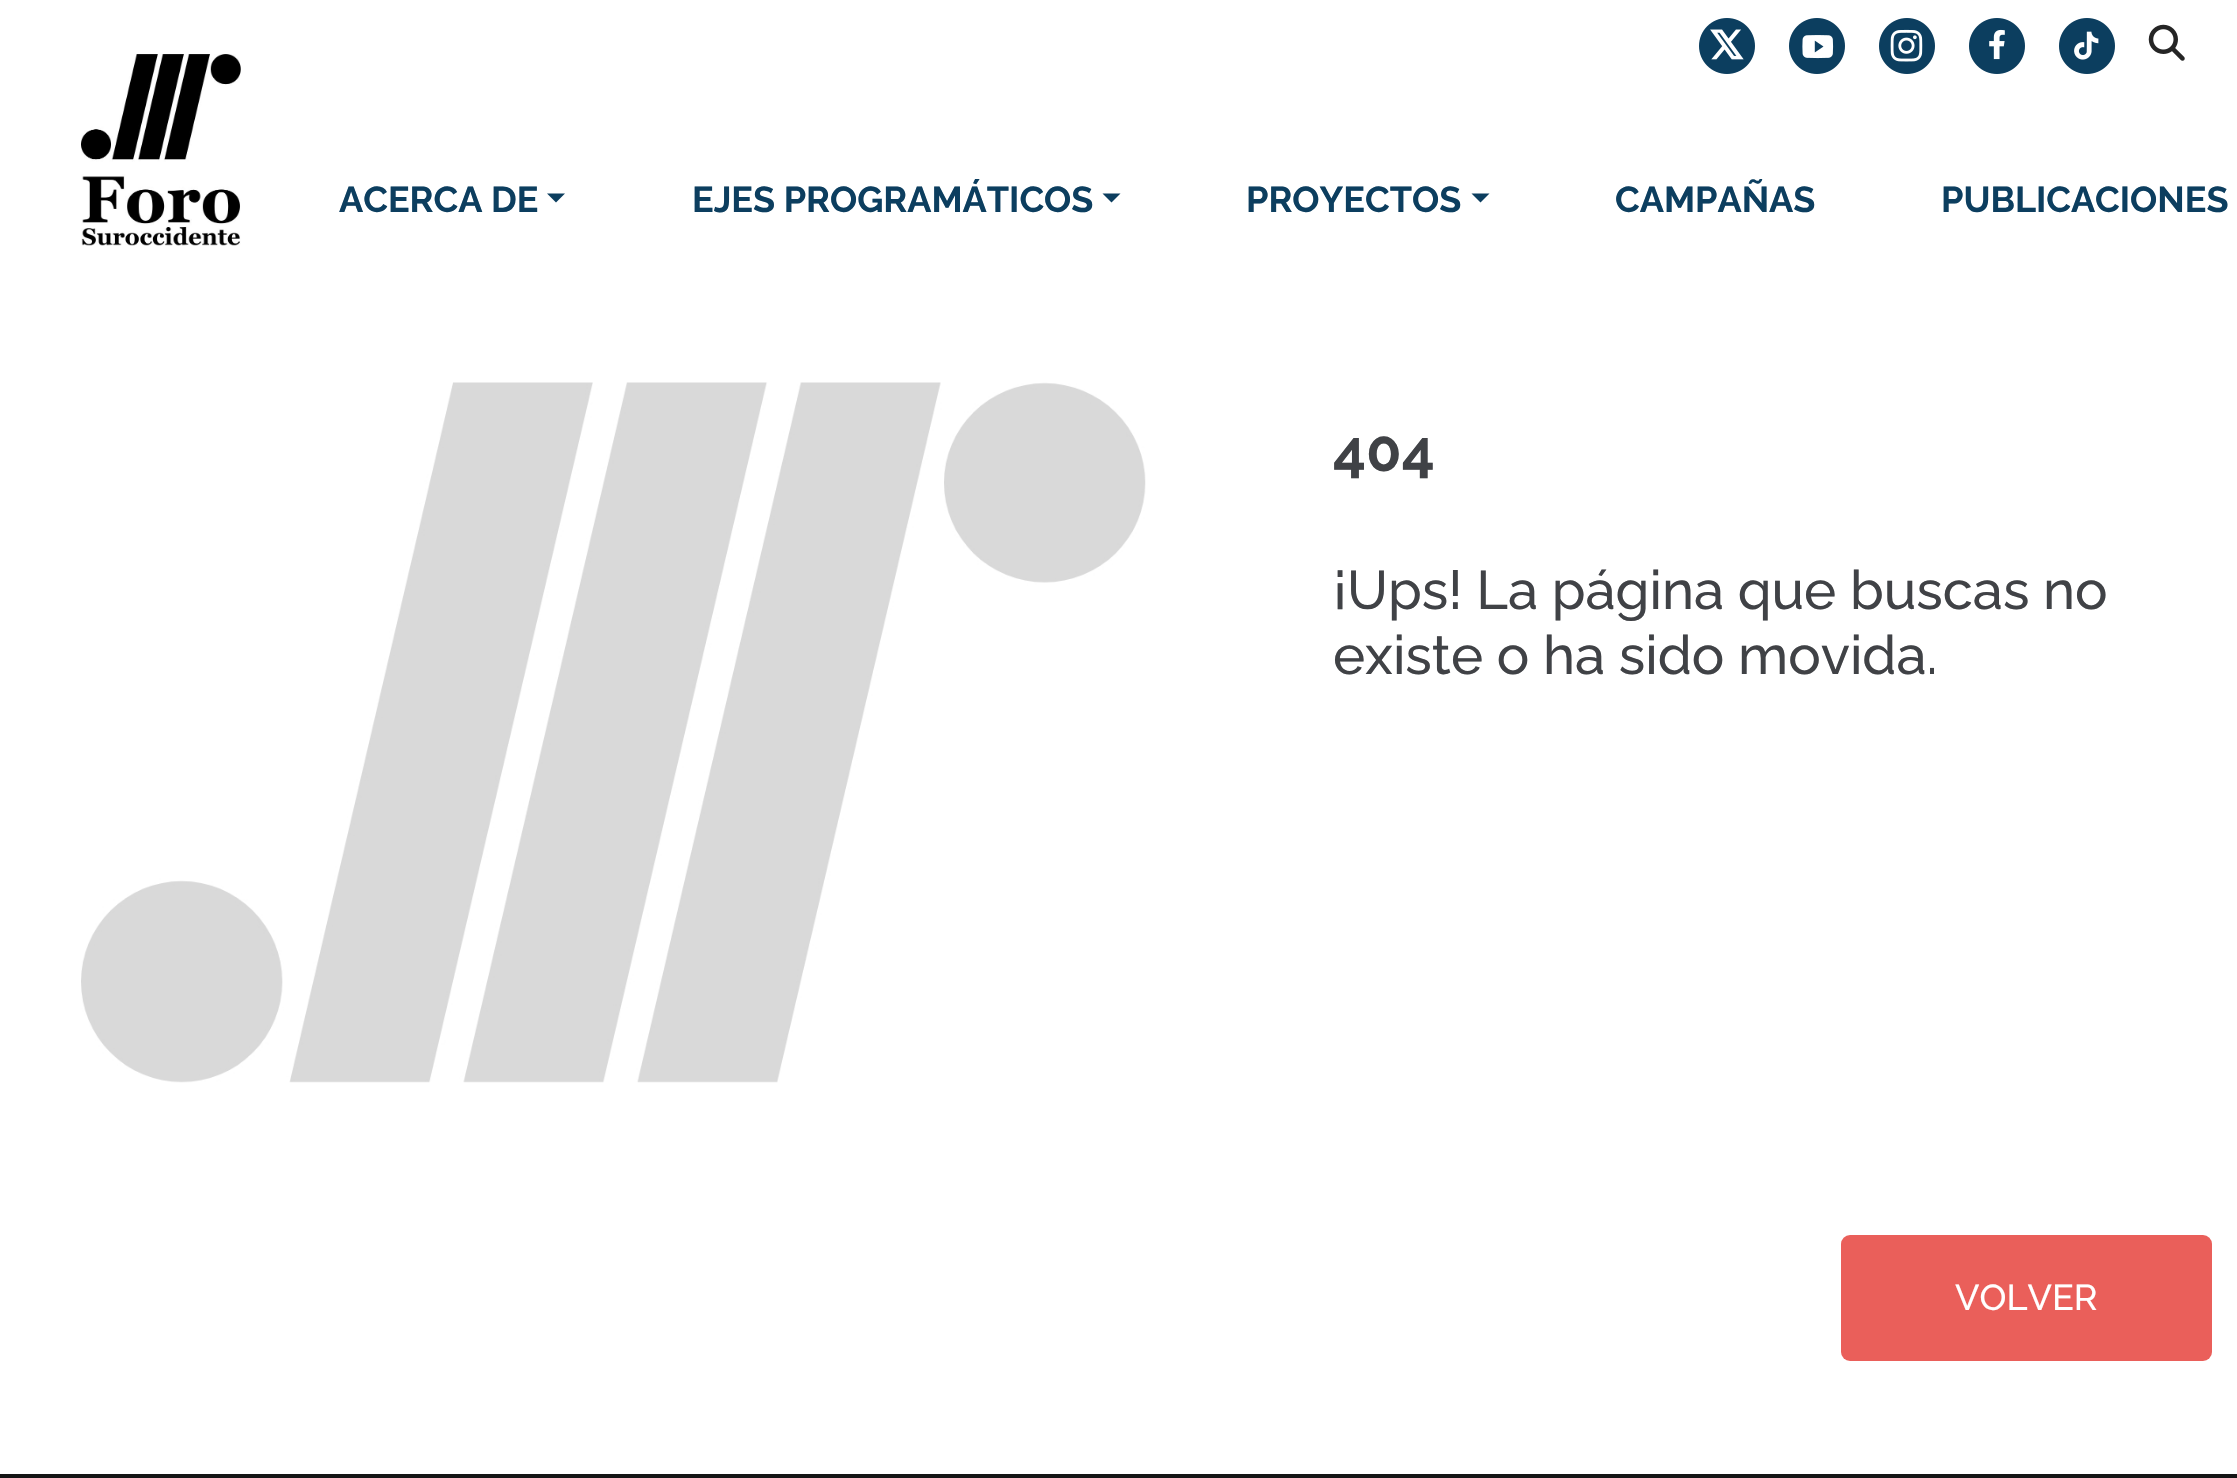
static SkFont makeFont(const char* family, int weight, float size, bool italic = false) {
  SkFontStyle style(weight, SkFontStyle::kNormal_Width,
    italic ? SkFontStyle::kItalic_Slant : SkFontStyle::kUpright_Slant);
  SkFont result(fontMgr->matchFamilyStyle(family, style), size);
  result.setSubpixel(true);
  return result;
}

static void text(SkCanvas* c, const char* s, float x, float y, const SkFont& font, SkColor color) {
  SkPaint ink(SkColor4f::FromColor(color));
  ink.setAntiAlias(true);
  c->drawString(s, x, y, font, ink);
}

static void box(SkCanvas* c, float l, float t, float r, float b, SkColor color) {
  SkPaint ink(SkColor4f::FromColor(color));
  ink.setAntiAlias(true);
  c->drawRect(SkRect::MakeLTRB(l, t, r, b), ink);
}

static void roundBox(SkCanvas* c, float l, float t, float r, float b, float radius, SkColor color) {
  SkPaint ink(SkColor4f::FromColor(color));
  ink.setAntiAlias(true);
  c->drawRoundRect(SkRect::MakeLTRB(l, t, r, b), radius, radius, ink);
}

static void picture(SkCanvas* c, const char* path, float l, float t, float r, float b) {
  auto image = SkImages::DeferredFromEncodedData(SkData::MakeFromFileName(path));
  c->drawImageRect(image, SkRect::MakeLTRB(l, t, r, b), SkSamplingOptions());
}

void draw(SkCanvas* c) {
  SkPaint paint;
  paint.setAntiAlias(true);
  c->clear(0xffffffff);
  picture(c, "img_01.png", 1699, 18, 1755, 74);
  picture(c, "img_02.png", 1789, 18, 1845, 74);
  picture(c, "img_03.png", 1879, 18, 1935, 74);
  picture(c, "img_04.png", 1969, 18, 2025, 74);
  picture(c, "img_05.png", 2059, 18, 2115, 74);
  picture(c, "img_06.png", 2148, 24, 2185, 61);
  picture(c, "img_07.png", 81, 54, 241, 246);
  SkFont face1 = makeFont("Raleway", 700, 36);
  text(c, "ACERCA DE", 339, 212, face1, 0xff0c3e5f);
  paint.setColor(0xff0c3e5f);
  c->drawPath(SkPathBuilder().moveTo(547, 193.5f).lineTo(565, 193.5f).lineTo(556, 202.5f).close().detach(), paint);
  text(c, "EJES PROGRAMÁTICOS", 692, 212, face1, 0xff0c3e5f);
  c->drawPath(SkPathBuilder().moveTo(1102.5f, 193.5f).lineTo(1120.5f, 193.5f).lineTo(1111.5f, 202.5f).close().detach(), paint);
  text(c, "PROYECTOS", 1246, 212, face1, 0xff0c3e5f);
  c->drawPath(SkPathBuilder().moveTo(1471.5f, 193.5f).lineTo(1489.5f, 193.5f).lineTo(1480.5f, 202.5f).close().detach(), paint);
  text(c, "CAMPAÑAS", 1615, 212, face1, 0xff0c3e5f);
  text(c, "PUBLICACIONES", 1941, 212, face1, 0xff0c3e5f);
  picture(c, "img_08.png", 81, 382, 1146, 1083);
  SkFont face2 = makeFont("Raleway", 700, 58);
  text(c, "404", 1333, 471, face2, 0xff404246);
  SkFont face3 = makeFont("Raleway", 500, 54.25f);
  text(c, "¡Ups! La página que buscas no", 1333, 609, face3, 0xff404246);
  text(c, "existe o ha sido movida.", 1333, 674, face3, 0xff404246);
  roundBox(c, 1841, 1235, 2212, 1361, 9, 0xffea5f5a);
  SkFont face4 = makeFont("Raleway", 500, 36);
  text(c, "VOLVER", 1955, 1310, face4, 0xffffffff);
  box(c, 0, 1474, 2237, 1478, 0xff151515);
}
